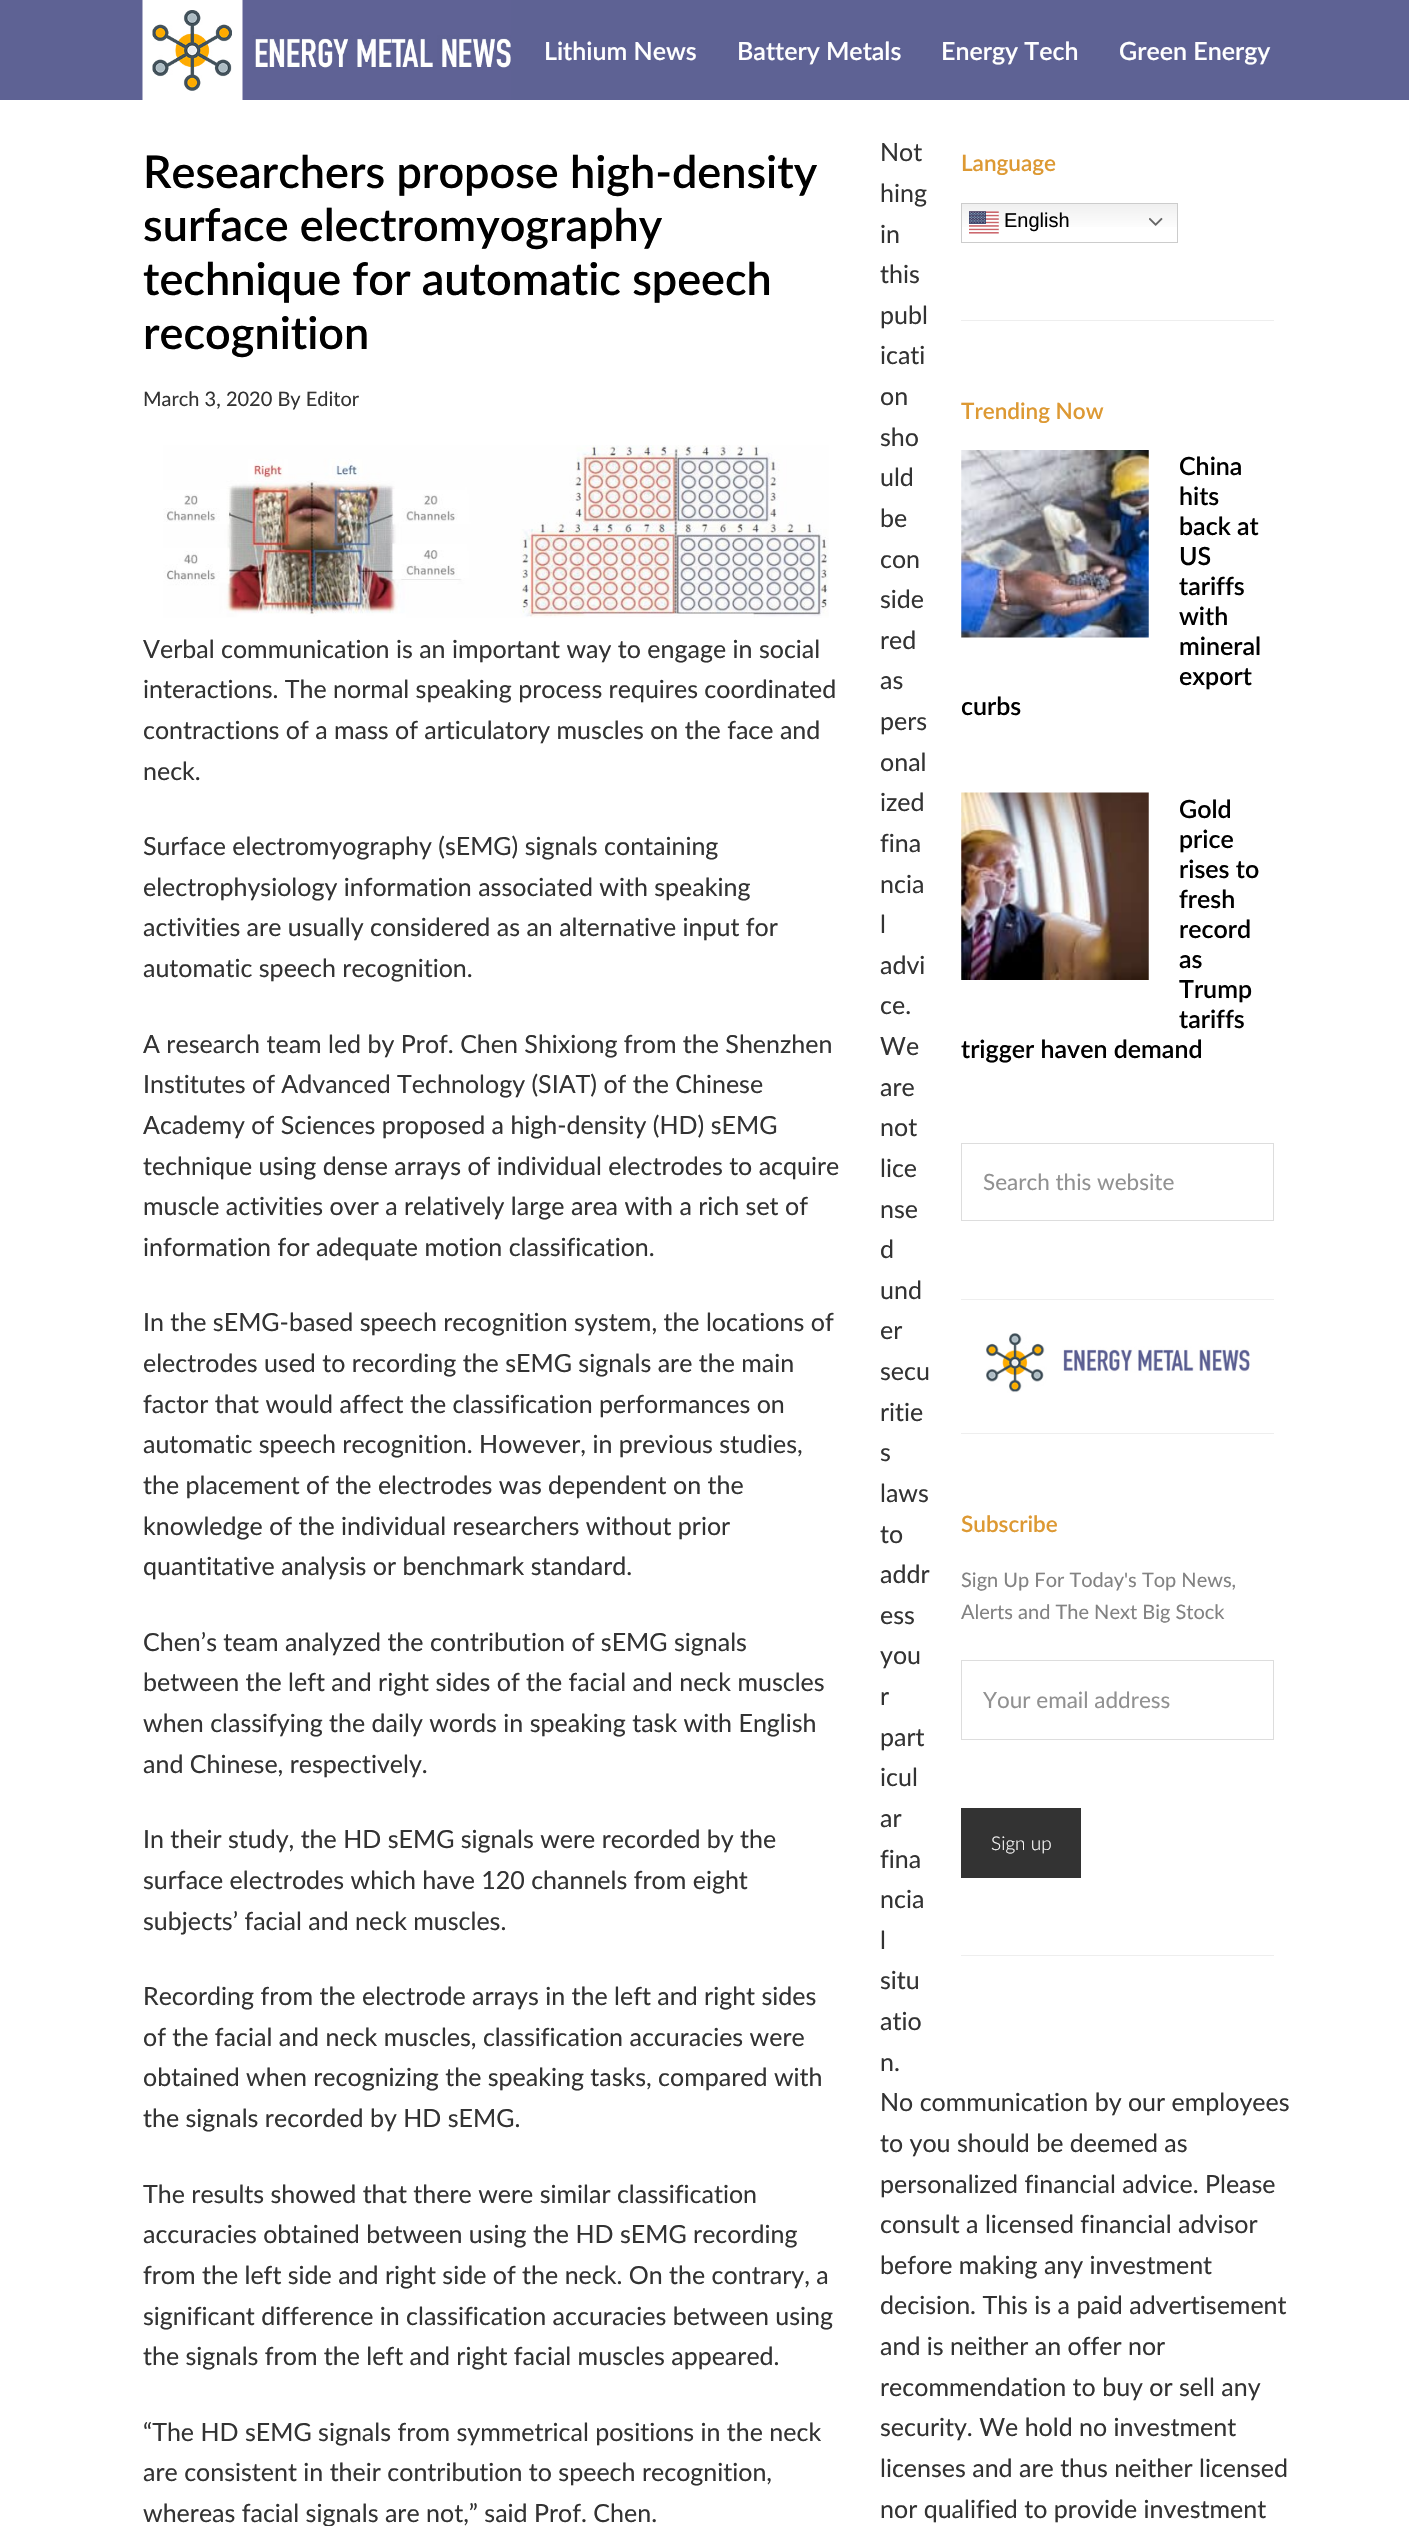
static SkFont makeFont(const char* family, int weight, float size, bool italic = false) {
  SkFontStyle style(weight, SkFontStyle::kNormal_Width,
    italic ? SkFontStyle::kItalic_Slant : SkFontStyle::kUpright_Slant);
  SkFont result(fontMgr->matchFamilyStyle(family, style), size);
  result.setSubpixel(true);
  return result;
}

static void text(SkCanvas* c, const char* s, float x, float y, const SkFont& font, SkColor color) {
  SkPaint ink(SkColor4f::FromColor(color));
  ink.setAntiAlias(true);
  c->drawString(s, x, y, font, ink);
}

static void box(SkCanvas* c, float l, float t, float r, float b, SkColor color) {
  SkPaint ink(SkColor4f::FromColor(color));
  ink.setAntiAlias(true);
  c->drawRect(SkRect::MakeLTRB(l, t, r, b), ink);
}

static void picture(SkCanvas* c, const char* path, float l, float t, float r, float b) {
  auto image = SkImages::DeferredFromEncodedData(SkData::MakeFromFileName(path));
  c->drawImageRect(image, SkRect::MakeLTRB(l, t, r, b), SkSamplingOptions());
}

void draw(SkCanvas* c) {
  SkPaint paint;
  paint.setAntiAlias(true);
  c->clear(0xffffffff);
  box(c, 0, 0, 1409, 100, 0xff5e6294);
  picture(c, "img_01.png", 142, 0, 511, 100);
  SkFont face1 = makeFont("Lato", 600, 25);
  text(c, "Lithium News", 544, 60, face1, 0xffffffff);
  text(c, "Battery Metals", 737, 60, face1, 0xffffffff);
  text(c, "Energy Tech", 941, 60, face1, 0xffffffff);
  text(c, "Green Energy", 1119, 60, face1, 0xffffffff);
  SkFont face2 = makeFont("Lato", 600, 45);
  text(c, "Researchers propose high-density", 143, 188, face2, 0xff000000);
  text(c, "surface electromyography", 143, 241, face2, 0xff000000);
  text(c, "technique for automatic speech", 143, 295, face2, 0xff000000);
  text(c, "recognition", 143, 349, face2, 0xff000000);
  SkFont face3 = makeFont("Lato", 400, 20);
  text(c, "March 3, 2020 By Editor", 143, 406, face3, 0xff333333);
  picture(c, "img_02.png", 163, 445, 829, 618);
  SkFont face4 = makeFont("Lato", 400, 25);
  text(c, "Verbal communication is an important way to engage in social", 143, 658, face4, 0xff333333);
  text(c, "interactions. The normal speaking process requires coordinated", 143, 698, face4, 0xff333333);
  text(c, "contractions of a mass of articulatory muscles on the face and", 143, 739, face4, 0xff333333);
  text(c, "neck.", 143, 780, face4, 0xff333333);
  text(c, "Surface electromyography (sEMG) signals containing", 143, 855, face4, 0xff333333);
  text(c, "electrophysiology information associated with speaking", 143, 896, face4, 0xff333333);
  text(c, "activities are usually considered as an alternative input for", 143, 936, face4, 0xff333333);
  text(c, "automatic speech recognition.", 143, 977, face4, 0xff333333);
  text(c, "A research team led by Prof. Chen Shixiong from the Shenzhen", 143, 1053, face4, 0xff333333);
  text(c, "Institutes of Advanced Technology (SIAT) of the Chinese", 143, 1093, face4, 0xff333333);
  text(c, "Academy of Sciences proposed a high-density (HD) sEMG", 143, 1134, face4, 0xff333333);
  text(c, "technique using dense arrays of individual electrodes to acquire", 143, 1175, face4, 0xff333333);
  text(c, "muscle activities over a relatively large area with a rich set of", 143, 1215, face4, 0xff333333);
  text(c, "information for adequate motion classification.", 143, 1256, face4, 0xff333333);
  text(c, "In the sEMG-based speech recognition system, the locations of", 143, 1331, face4, 0xff333333);
  text(c, "electrodes used to recording the sEMG signals are the main", 143, 1372, face4, 0xff333333);
  text(c, "factor that would affect the classification performances on", 143, 1413, face4, 0xff333333);
  text(c, "automatic speech recognition. However, in previous studies,", 143, 1453, face4, 0xff333333);
  text(c, "the placement of the electrodes was dependent on the", 143, 1494, face4, 0xff333333);
  text(c, "knowledge of the individual researchers without prior", 143, 1535, face4, 0xff333333);
  text(c, "quantitative analysis or benchmark standard.", 143, 1575, face4, 0xff333333);
  text(c, "Chen’s team analyzed the contribution of sEMG signals", 143, 1651, face4, 0xff333333);
  text(c, "between the left and right sides of the facial and neck muscles", 143, 1691, face4, 0xff333333);
  text(c, "when classifying the daily words in speaking task with English", 143, 1732, face4, 0xff333333);
  text(c, "and Chinese, respectively.", 143, 1773, face4, 0xff333333);
  text(c, "In their study, the HD sEMG signals were recorded by the", 143, 1848, face4, 0xff333333);
  text(c, "surface electrodes which have 120 channels from eight", 143, 1889, face4, 0xff333333);
  text(c, "subjects’ facial and neck muscles.", 143, 1930, face4, 0xff333333);
  text(c, "Recording from the electrode arrays in the left and right sides", 143, 2005, face4, 0xff333333);
  text(c, "of the facial and neck muscles, classification accuracies were", 143, 2046, face4, 0xff333333);
  text(c, "obtained when recognizing the speaking tasks, compared with", 143, 2086, face4, 0xff333333);
  text(c, "the signals recorded by HD sEMG.", 143, 2127, face4, 0xff333333);
  text(c, "The results showed that there were similar classification", 143, 2203, face4, 0xff333333);
  text(c, "accuracies obtained between using the HD sEMG recording", 143, 2243, face4, 0xff333333);
  text(c, "from the left side and right side of the neck. On the contrary, a", 143, 2284, face4, 0xff333333);
  text(c, "significant difference in classification accuracies between using", 143, 2325, face4, 0xff333333);
  text(c, "the signals from the left and right facial muscles appeared.", 143, 2365, face4, 0xff333333);
  text(c, "“The HD sEMG signals from symmetrical positions in the neck", 143, 2441, face4, 0xff333333);
  text(c, "are consistent in their contribution to speech recognition,", 143, 2481, face4, 0xff333333);
  text(c, "whereas facial signals are not,” said Prof. Chen.", 143, 2522, face4, 0xff333333);
  text(c, "Not", 880, 161, face4, 0xff333333);
  text(c, "hing", 880, 202, face4, 0xff333333);
  text(c, "in", 880, 243, face4, 0xff333333);
  text(c, "this", 880, 283, face4, 0xff333333);
  text(c, "publ", 880, 324, face4, 0xff333333);
  text(c, "icati", 880, 364, face4, 0xff333333);
  text(c, "on", 880, 405, face4, 0xff333333);
  text(c, "sho", 880, 446, face4, 0xff333333);
  text(c, "uld", 880, 486, face4, 0xff333333);
  text(c, "be", 880, 527, face4, 0xff333333);
  text(c, "con", 880, 568, face4, 0xff333333);
  text(c, "side", 880, 608, face4, 0xff333333);
  text(c, "red", 880, 649, face4, 0xff333333);
  text(c, "as", 880, 689, face4, 0xff333333);
  text(c, "pers", 880, 730, face4, 0xff333333);
  text(c, "onal", 880, 771, face4, 0xff333333);
  text(c, "ized", 880, 811, face4, 0xff333333);
  text(c, "fina", 880, 852, face4, 0xff333333);
  text(c, "ncia", 880, 893, face4, 0xff333333);
  text(c, "l", 880, 933, face4, 0xff333333);
  text(c, "advi", 880, 974, face4, 0xff333333);
  text(c, "ce.", 880, 1014, face4, 0xff333333);
  text(c, "We", 880, 1055, face4, 0xff333333);
  text(c, "are", 880, 1096, face4, 0xff333333);
  text(c, "not", 880, 1136, face4, 0xff333333);
  text(c, "lice", 880, 1177, face4, 0xff333333);
  text(c, "nse", 880, 1218, face4, 0xff333333);
  text(c, "d", 880, 1258, face4, 0xff333333);
  text(c, "und", 880, 1299, face4, 0xff333333);
  text(c, "er", 880, 1339, face4, 0xff333333);
  text(c, "secu", 880, 1380, face4, 0xff333333);
  text(c, "ritie", 880, 1421, face4, 0xff333333);
  text(c, "s", 880, 1461, face4, 0xff333333);
  text(c, "laws", 880, 1502, face4, 0xff333333);
  text(c, "to", 880, 1543, face4, 0xff333333);
  text(c, "addr", 880, 1583, face4, 0xff333333);
  text(c, "ess", 880, 1624, face4, 0xff333333);
  text(c, "you", 880, 1664, face4, 0xff333333);
  text(c, "r", 880, 1705, face4, 0xff333333);
  text(c, "part", 880, 1746, face4, 0xff333333);
  text(c, "icul", 880, 1786, face4, 0xff333333);
  text(c, "ar", 880, 1827, face4, 0xff333333);
  text(c, "fina", 880, 1868, face4, 0xff333333);
  text(c, "ncia", 880, 1908, face4, 0xff333333);
  text(c, "l", 880, 1949, face4, 0xff333333);
  text(c, "situ", 880, 1989, face4, 0xff333333);
  text(c, "atio", 880, 2030, face4, 0xff333333);
  text(c, "n.", 880, 2071, face4, 0xff333333);
  text(c, "No communication by our employees", 880, 2111, face4, 0xff333333);
  text(c, "to you should be deemed as", 880, 2152, face4, 0xff333333);
  text(c, "personalized financial advice. Please", 880, 2193, face4, 0xff333333);
  text(c, "consult a licensed financial advisor", 880, 2233, face4, 0xff333333);
  text(c, "before making any investment", 880, 2274, face4, 0xff333333);
  text(c, "decision. This is a paid advertisement", 880, 2314, face4, 0xff333333);
  text(c, "and is neither an offer nor", 880, 2355, face4, 0xff333333);
  text(c, "recommendation to buy or sell any", 880, 2396, face4, 0xff333333);
  text(c, "security. We hold no investment", 880, 2436, face4, 0xff333333);
  text(c, "licenses and are thus neither licensed", 880, 2477, face4, 0xff333333);
  text(c, "nor qualified to provide investment", 880, 2518, face4, 0xff333333);
  SkFont face5 = makeFont("Lato", 600, 22.5f);
  text(c, "Language", 961, 171, face5, 0xffdd9933);
  {
    const SkColor colors[] = {0xffefefef, 0xffffffff};
    const float stops[] = {0, 0.7f};
    const SkPoint ends[] = {{1069, 203}, {1069, 243}};
    paint.setShader(SkGradientShader::MakeLinear(ends, colors, stops, 2, SkTileMode::kClamp));
    paint.setAlpha(255);
  }
  c->drawRect(SkRect::MakeLTRB(962, 204, 1177, 227), paint);
  paint.setStyle(SkPaint::kStroke_Style);
  paint.setStrokeWidth(1);
  paint.setShader(nullptr);
  paint.setColor(0xffcccccc);
  c->drawRect(SkRect::MakeLTRB(961.5f, 203.5f, 1177.5f, 242.5f), paint);
  picture(c, "img_03.png", 969, 211, 999, 234);
  SkFont face6 = makeFont("Liberation Sans", 400, 20);
  text(c, "English", 1004, 227, face6, 0xff000000);
  picture(c, "img_04.png", 1149, 217, 1163, 226);
  box(c, 961, 320, 1274, 321, 0xffeeeeee);
  text(c, "Trending Now", 961, 419, face5, 0xffdd9933);
  picture(c, "img_05.png", 961, 450, 1149, 638);
  text(c, "China", 1179, 475, face1, 0xff000000);
  text(c, "hits", 1179, 505, face1, 0xff000000);
  text(c, "back at", 1179, 535, face1, 0xff000000);
  text(c, "US", 1179, 565, face1, 0xff000000);
  text(c, "tariffs", 1179, 595, face1, 0xff000000);
  text(c, "with", 1179, 625, face1, 0xff000000);
  text(c, "mineral", 1179, 655, face1, 0xff000000);
  text(c, "export", 1179, 685, face1, 0xff000000);
  text(c, "curbs", 961, 715, face1, 0xff000000);
  picture(c, "img_06.png", 961, 792, 1149, 980);
  text(c, "Gold", 1179, 818, face1, 0xff000000);
  text(c, "price", 1179, 848, face1, 0xff000000);
  text(c, "rises to", 1179, 878, face1, 0xff000000);
  text(c, "fresh", 1179, 908, face1, 0xff000000);
  text(c, "record", 1179, 938, face1, 0xff000000);
  text(c, "as", 1179, 968, face1, 0xff000000);
  text(c, "Trump", 1179, 998, face1, 0xff000000);
  text(c, "tariffs", 1179, 1028, face1, 0xff000000);
  text(c, "trigger haven demand", 961, 1058, face1, 0xff000000);
  paint.setColor(0xffdddddd);
  c->drawRect(SkRect::MakeLTRB(961.5f, 1143.5f, 1273.5f, 1220.5f), paint);
  SkFont face7 = makeFont("Lato", 400, 22.5f);
  text(c, "Search this website", 983, 1190, face7, 0xff919191);
  box(c, 961, 1299, 1274, 1300, 0xffeeeeee);
  picture(c, "img_07.png", 986, 1333, 1250, 1393);
  box(c, 961, 1433, 1274, 1434, 0xffeeeeee);
  text(c, "Subscribe", 961, 1532, face5, 0xffdd9933);
  text(c, "Sign Up For Today's Top News,", 961, 1587, face3, 0xff828282);
  text(c, "Alerts and The Next Big Stock", 961, 1619, face3, 0xff828282);
  c->drawRect(SkRect::MakeLTRB(961.5f, 1660.5f, 1273.5f, 1739.5f), paint);
  text(c, "Your email address", 983, 1708, face7, 0xff919191);
  box(c, 961, 1808, 1081, 1878, 0xff333333);
  SkFont face8 = makeFont("Lato", 300, 19);
  text(c, "Sign up", 991, 1850, face8, 0xffffffff);
  box(c, 961, 1955, 1274, 1956, 0xffeeeeee);
}
